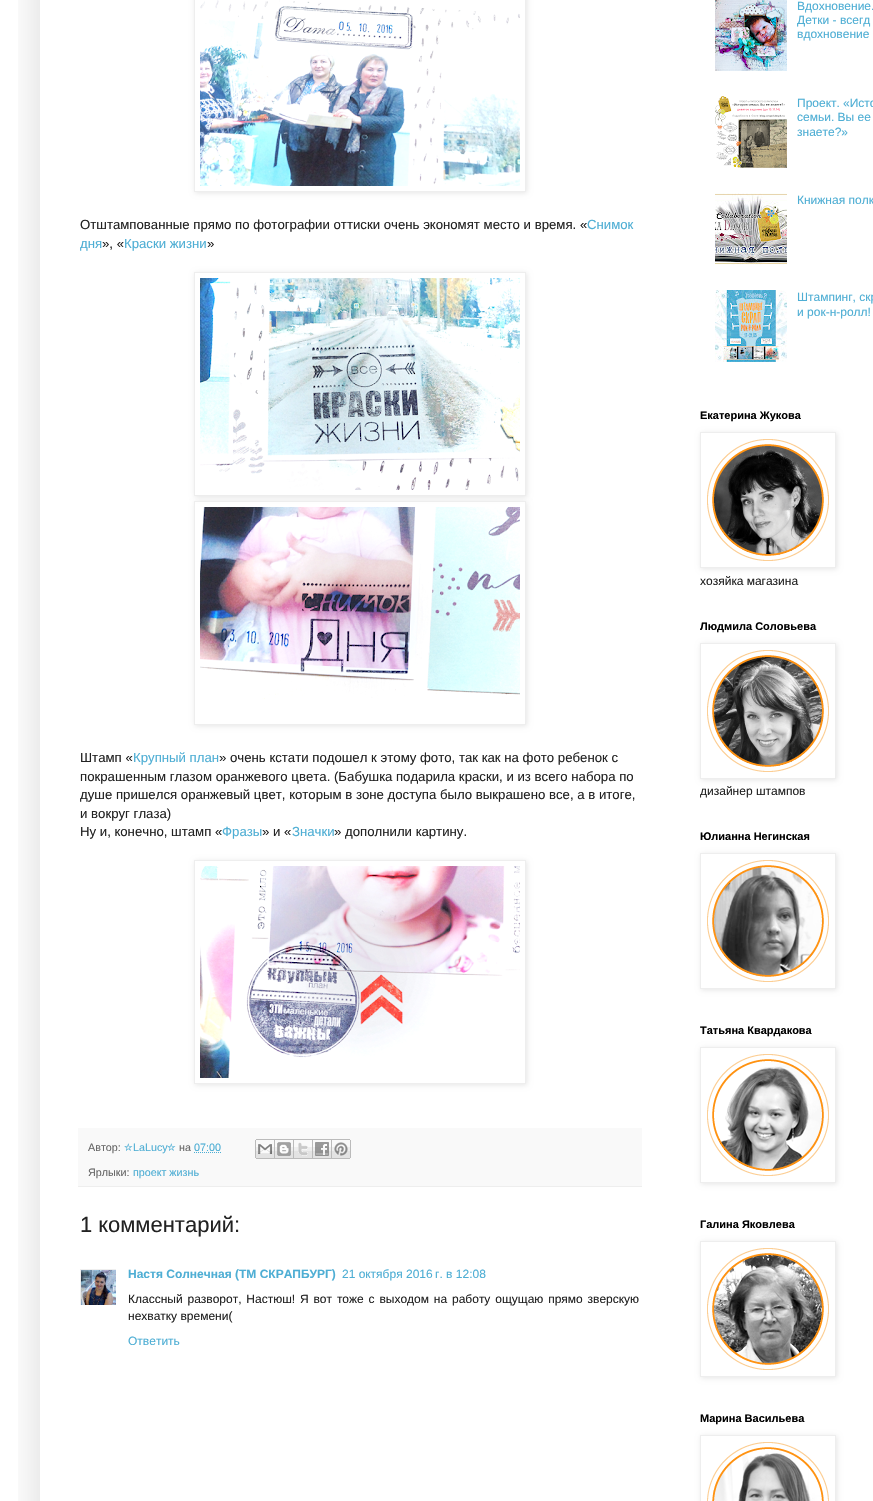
static SkFont makeFont(const char* family, int weight, float size, bool italic = false) {
  SkFontStyle style(weight, SkFontStyle::kNormal_Width,
    italic ? SkFontStyle::kItalic_Slant : SkFontStyle::kUpright_Slant);
  SkFont result(fontMgr->matchFamilyStyle(family, style), size);
  result.setSubpixel(true);
  return result;
}

static void text(SkCanvas* c, const char* s, float x, float y, const SkFont& font, SkColor color) {
  SkPaint ink(SkColor4f::FromColor(color));
  ink.setAntiAlias(true);
  c->drawString(s, x, y, font, ink);
}

static void spacedText(SkCanvas* c, const char* s, float x, float y, const SkFont& font, const SkPaint& ink, float letter, float word) {
  std::vector<SkGlyphID> glyphs(font.countText(s, strlen(s), SkTextEncoding::kUTF8));
  std::vector<float> xs(glyphs.size());
  font.textToGlyphs(s, strlen(s), SkTextEncoding::kUTF8, glyphs);
  font.getXPos(glyphs, xs, x);
  float extra = 0;
  for (size_t i = 0; i < glyphs.size(); i++) {
    xs[i] += extra;
    extra += letter + word * (glyphs[i] == font.unicharToGlyph(' '));
  }
  c->drawTextBlob(SkTextBlob::MakeFromPosHGlyphs(glyphs, xs, y, font), 0, 0, ink);
}

static void box(SkCanvas* c, float l, float t, float r, float b, SkColor color) {
  SkPaint ink(SkColor4f::FromColor(color));
  ink.setAntiAlias(true);
  c->drawRect(SkRect::MakeLTRB(l, t, r, b), ink);
}

static void picture(SkCanvas* c, const char* path, float l, float t, float r, float b) {
  auto image = SkImages::DeferredFromEncodedData(SkData::MakeFromFileName(path));
  c->drawImageRect(image, SkRect::MakeLTRB(l, t, r, b), SkSamplingOptions());
}

void draw(SkCanvas* c) {
  SkPaint paint;
  paint.setAntiAlias(true);
  c->clear(0xffffffff);
  c->save();
  c->clipRect(SkRect::MakeLTRB(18, 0, 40, 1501));
  paint.setColor(0x26000000);
  paint.setMaskFilter(SkMaskFilter::MakeBlur(kNormal_SkBlurStyle, 20));
  c->drawRect(SkRect::MakeLTRB(40, -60, 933, 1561), paint);
  paint.setMaskFilter(nullptr);
  c->restore();
  c->save();
  c->clipPath(SkPathBuilder(SkPathFillType::kEvenOdd).moveTo(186, 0).lineTo(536, 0).lineTo(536, 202).lineTo(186, 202).close().moveTo(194, -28).lineTo(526, -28).lineTo(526, 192).lineTo(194, 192).close().detach(), true);
  paint.setColor(0x1a000000);
  paint.setMaskFilter(SkMaskFilter::MakeBlur(kNormal_SkBlurStyle, 2.5f));
  c->drawRect(SkRect::MakeLTRB(195, -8, 527, 193), paint);
  paint.setMaskFilter(nullptr);
  c->restore();
  paint.setStyle(SkPaint::kStroke_Style);
  paint.setStrokeWidth(1);
  paint.setColor(0xffeeeeee);
  c->drawRect(SkRect::MakeLTRB(194.5f, -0.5f, 525.5f, 191.5f), paint);
  picture(c, "img_01.png", 200, 0, 520, 186);
  SkFont face1 = makeFont("Liberation Sans", 400, 13.2f);
  text(c, "Отштампованные прямо по фотографии оттиски очень экономят место и время. «", 80, 229, face1, 0xff222222);
  text(c, "Снимок", 587, 229, face1, 0xff4eaed4);
  text(c, "дня", 80, 248, face1, 0xff4eaed4);
  text(c, "», «", 102, 248, face1, 0xff222222);
  text(c, "Краски жизни", 124, 248, face1, 0xff4eaed4);
  text(c, "»", 207, 248, face1, 0xff222222);
  c->save();
  c->clipPath(SkPathBuilder(SkPathFillType::kEvenOdd).moveTo(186, 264).lineTo(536, 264).lineTo(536, 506).lineTo(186, 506).close().moveTo(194, 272).lineTo(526, 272).lineTo(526, 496).lineTo(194, 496).close().detach(), true);
  paint.setStyle(SkPaint::kFill_Style);
  paint.setColor(0x1a000000);
  paint.setMaskFilter(SkMaskFilter::MakeBlur(kNormal_SkBlurStyle, 2.5f));
  c->drawRect(SkRect::MakeLTRB(195, 273, 527, 497), paint);
  paint.setMaskFilter(nullptr);
  c->restore();
  paint.setStyle(SkPaint::kStroke_Style);
  paint.setColor(0xffeeeeee);
  c->drawRect(SkRect::MakeLTRB(194.5f, 272.5f, 525.5f, 495.5f), paint);
  picture(c, "img_02.png", 200, 278, 520, 490);
  c->save();
  c->clipPath(SkPathBuilder(SkPathFillType::kEvenOdd).moveTo(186, 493).lineTo(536, 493).lineTo(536, 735).lineTo(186, 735).close().moveTo(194, 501).lineTo(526, 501).lineTo(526, 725).lineTo(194, 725).close().detach(), true);
  paint.setStyle(SkPaint::kFill_Style);
  paint.setColor(0x1a000000);
  paint.setMaskFilter(SkMaskFilter::MakeBlur(kNormal_SkBlurStyle, 2.5f));
  c->drawRect(SkRect::MakeLTRB(195, 502, 527, 726), paint);
  paint.setMaskFilter(nullptr);
  c->restore();
  paint.setStyle(SkPaint::kStroke_Style);
  paint.setColor(0xffeeeeee);
  c->drawRect(SkRect::MakeLTRB(194.5f, 501.5f, 525.5f, 724.5f), paint);
  picture(c, "img_03.png", 200, 507, 520, 699);
  text(c, "Штамп «", 80, 762, face1, 0xff222222);
  text(c, "Крупный план", 133, 762, face1, 0xff4eaed4);
  text(c, "» очень кстати подошел к этому фото, так как на фото ребенок с", 219, 762, face1, 0xff222222);
  text(c, "покрашенным глазом оранжевого цвета. (Бабушка подарила краски, и из всего набора по", 80, 781, face1, 0xff222222);
  text(c, "душе пришелся оранжевый цвет, которым в зоне доступа было выкрашено все, а в итоге,", 80, 799, face1, 0xff222222);
  text(c, "и вокруг глаза)", 80, 818, face1, 0xff222222);
  text(c, "Ну и, конечно, штамп «", 80, 836, face1, 0xff222222);
  text(c, "Фразы", 222, 836, face1, 0xff4eaed4);
  text(c, "» и «", 262, 836, face1, 0xff222222);
  text(c, "Значки", 292, 836, face1, 0xff4eaed4);
  text(c, "» дополнили картину.", 334, 836, face1, 0xff222222);
  c->save();
  c->clipPath(SkPathBuilder(SkPathFillType::kEvenOdd).moveTo(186, 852).lineTo(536, 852).lineTo(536, 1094).lineTo(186, 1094).close().moveTo(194, 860).lineTo(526, 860).lineTo(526, 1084).lineTo(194, 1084).close().detach(), true);
  paint.setStyle(SkPaint::kFill_Style);
  paint.setColor(0x1a000000);
  paint.setMaskFilter(SkMaskFilter::MakeBlur(kNormal_SkBlurStyle, 2.5f));
  c->drawRect(SkRect::MakeLTRB(195, 861, 527, 1085), paint);
  paint.setMaskFilter(nullptr);
  c->restore();
  paint.setStyle(SkPaint::kStroke_Style);
  paint.setColor(0xffeeeeee);
  c->drawRect(SkRect::MakeLTRB(194.5f, 860.5f, 525.5f, 1083.5f), paint);
  picture(c, "img_04.png", 200, 866, 520, 1078);
  box(c, 78, 1128, 642, 1186, 0xfff9f9f9);
  box(c, 78, 1186, 642, 1187, 0xffeeeeee);
  SkFont face2 = makeFont("Liberation Sans", 400, 10.75f);
  text(c, "Автор:", 88, 1151, face2, 0xff666666);
  SkFont face3 = makeFont("FreeSans", 400, 10.75f);
  text(c, "☆", 124, 1151, face3, 0xff4eaed4);
  text(c, "LaLucy", 133, 1151, face2, 0xff4eaed4);
  text(c, "☆", 167, 1151, face3, 0xff4eaed4);
  text(c, "на", 179, 1151, face2, 0xff666666);
  text(c, "07:00", 194, 1151, face2, 0xff4eaed4);
  paint.setColor(0xff4eaed4);
  paint.setPathEffect(SkDashPathEffect::Make({{1, 1}}, 0));
  c->drawPath(SkPathBuilder().moveTo(194, 1152.5f).lineTo(221, 1152.5f).detach(), paint);
  paint.setPathEffect(nullptr);
  picture(c, "img_05.png", 255, 1139, 275, 1159);
  picture(c, "img_06.png", 275, 1139, 294, 1159);
  picture(c, "img_07.png", 294, 1139, 313, 1159);
  picture(c, "img_08.png", 313, 1139, 332, 1159);
  picture(c, "img_09.png", 332, 1139, 351, 1159);
  text(c, "Ярлыки:", 88, 1176, face2, 0xff666666);
  text(c, "проект жизнь", 133, 1176, face2, 0xff4eaed4);
  SkFont face4 = makeFont("Liberation Sans", 400, 22);
  text(c, "1 комментарий:", 80, 1232, face4, 0xff222222);
  c->save();
  c->clipRect(SkRect::MakeLTRB(80, 1269, 116, 1305));
  paint.setColor(0xffeeeeee);
  c->drawRect(SkRect::MakeLTRB(80.5f, 1269.5f, 117.5f, 1306.5f), paint);
  c->restore();
  picture(c, "img_10.png", 81, 1270, 116, 1305);
  SkFont face5 = makeFont("Liberation Sans", 700, 12);
  text(c, "Настя Солнечная (ТМ СКРАПБУРГ)", 128, 1278, face5, 0xff4eaed4);
  SkFont face6 = makeFont("Liberation Sans", 400, 12);
  text(c, "21 октября 2016 г. в 12:08", 342, 1278, face6, 0xff4eaed4);
  paint.setStyle(SkPaint::kFill_Style);
  paint.setColor(0xff222222);
  spacedText(c, "Классный разворот, Настюш! Я вот тоже с выходом на работу ощущаю прямо зверскую", 128, 1303, face6, paint, 0, 1.5f);
  text(c, "нехватку времени(", 128, 1320, face6, 0xff222222);
  text(c, "Ответить", 128, 1345, face6, 0xff4eaed4);
  picture(c, "img_11.png", 715, 0, 787, 71);
  text(c, "Вдохновение.", 797, 10, face6, 0xff4eaed4);
  text(c, "Детки - всегд", 797, 24, face6, 0xff4eaed4);
  text(c, "вдохновение", 797, 38, face6, 0xff4eaed4);
  picture(c, "img_12.png", 715, 96, 787, 168);
  text(c, "Проект. «Исто", 797, 107, face6, 0xff4eaed4);
  text(c, "семьи. Вы ее", 797, 121, face6, 0xff4eaed4);
  text(c, "знаете?»", 797, 136, face6, 0xff4eaed4);
  picture(c, "img_13.png", 715, 193, 787, 265);
  text(c, "Книжная полк", 797, 204, face6, 0xff4eaed4);
  picture(c, "img_14.png", 715, 290, 787, 362);
  text(c, "Штампинг, скр", 797, 301, face6, 0xff4eaed4);
  text(c, "и рок-н-ролл!", 797, 316, face6, 0xff4eaed4);
  SkFont face7 = makeFont("Liberation Sans", 700, 11);
  text(c, "Екатерина Жукова", 700, 419, face7, 0xff000000);
  c->save();
  c->clipPath(SkPathBuilder(SkPathFillType::kEvenOdd).moveTo(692, 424).lineTo(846, 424).lineTo(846, 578).lineTo(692, 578).close().moveTo(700, 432).lineTo(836, 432).lineTo(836, 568).lineTo(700, 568).close().detach(), true);
  paint.setColor(0x1a000000);
  paint.setMaskFilter(SkMaskFilter::MakeBlur(kNormal_SkBlurStyle, 2.5f));
  c->drawRect(SkRect::MakeLTRB(701, 433, 837, 569), paint);
  paint.setMaskFilter(nullptr);
  c->restore();
  paint.setStyle(SkPaint::kStroke_Style);
  paint.setColor(0xffeeeeee);
  c->drawRect(SkRect::MakeLTRB(700.5f, 432.5f, 835.5f, 567.5f), paint);
  picture(c, "img_15.png", 707, 439, 829, 561);
  text(c, "хозяйка магазина", 700, 585, face6, 0xff222222);
  text(c, "Людмила Соловьева", 700, 630, face7, 0xff000000);
  c->save();
  c->clipPath(SkPathBuilder(SkPathFillType::kEvenOdd).moveTo(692, 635).lineTo(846, 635).lineTo(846, 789).lineTo(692, 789).close().moveTo(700, 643).lineTo(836, 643).lineTo(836, 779).lineTo(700, 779).close().detach(), true);
  paint.setStyle(SkPaint::kFill_Style);
  paint.setColor(0x1a000000);
  paint.setMaskFilter(SkMaskFilter::MakeBlur(kNormal_SkBlurStyle, 2.5f));
  c->drawRect(SkRect::MakeLTRB(701, 644, 837, 780), paint);
  paint.setMaskFilter(nullptr);
  c->restore();
  paint.setStyle(SkPaint::kStroke_Style);
  paint.setColor(0xffeeeeee);
  c->drawRect(SkRect::MakeLTRB(700.5f, 643.5f, 835.5f, 778.5f), paint);
  picture(c, "img_16.png", 707, 650, 829, 772);
  text(c, "дизайнер штампов", 700, 795, face6, 0xff222222);
  text(c, "Юлианна Негинская", 700, 840, face7, 0xff000000);
  c->save();
  c->clipPath(SkPathBuilder(SkPathFillType::kEvenOdd).moveTo(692, 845).lineTo(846, 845).lineTo(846, 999).lineTo(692, 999).close().moveTo(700, 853).lineTo(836, 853).lineTo(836, 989).lineTo(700, 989).close().detach(), true);
  paint.setStyle(SkPaint::kFill_Style);
  paint.setColor(0x1a000000);
  paint.setMaskFilter(SkMaskFilter::MakeBlur(kNormal_SkBlurStyle, 2.5f));
  c->drawRect(SkRect::MakeLTRB(701, 854, 837, 990), paint);
  paint.setMaskFilter(nullptr);
  c->restore();
  paint.setStyle(SkPaint::kStroke_Style);
  paint.setColor(0xffeeeeee);
  c->drawRect(SkRect::MakeLTRB(700.5f, 853.5f, 835.5f, 988.5f), paint);
  picture(c, "img_17.png", 707, 860, 829, 982);
  text(c, "Татьяна Квардакова", 700, 1034, face7, 0xff000000);
  c->save();
  c->clipPath(SkPathBuilder(SkPathFillType::kEvenOdd).moveTo(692, 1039).lineTo(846, 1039).lineTo(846, 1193).lineTo(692, 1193).close().moveTo(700, 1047).lineTo(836, 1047).lineTo(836, 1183).lineTo(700, 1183).close().detach(), true);
  paint.setStyle(SkPaint::kFill_Style);
  paint.setColor(0x1a000000);
  paint.setMaskFilter(SkMaskFilter::MakeBlur(kNormal_SkBlurStyle, 2.5f));
  c->drawRect(SkRect::MakeLTRB(701, 1048, 837, 1184), paint);
  paint.setMaskFilter(nullptr);
  c->restore();
  paint.setStyle(SkPaint::kStroke_Style);
  paint.setColor(0xffeeeeee);
  c->drawRect(SkRect::MakeLTRB(700.5f, 1047.5f, 835.5f, 1182.5f), paint);
  picture(c, "img_18.png", 707, 1054, 829, 1176);
  text(c, "Галина Яковлева", 700, 1228, face7, 0xff000000);
  c->save();
  c->clipPath(SkPathBuilder(SkPathFillType::kEvenOdd).moveTo(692, 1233).lineTo(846, 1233).lineTo(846, 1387).lineTo(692, 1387).close().moveTo(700, 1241).lineTo(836, 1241).lineTo(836, 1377).lineTo(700, 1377).close().detach(), true);
  paint.setStyle(SkPaint::kFill_Style);
  paint.setColor(0x1a000000);
  paint.setMaskFilter(SkMaskFilter::MakeBlur(kNormal_SkBlurStyle, 2.5f));
  c->drawRect(SkRect::MakeLTRB(701, 1242, 837, 1378), paint);
  paint.setMaskFilter(nullptr);
  c->restore();
  paint.setStyle(SkPaint::kStroke_Style);
  paint.setColor(0xffeeeeee);
  c->drawRect(SkRect::MakeLTRB(700.5f, 1241.5f, 835.5f, 1376.5f), paint);
  picture(c, "img_19.png", 707, 1248, 829, 1370);
  text(c, "Марина Васильева", 700, 1422, face7, 0xff000000);
  c->save();
  c->clipPath(SkPathBuilder(SkPathFillType::kEvenOdd).moveTo(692, 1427).lineTo(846, 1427).lineTo(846, 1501).lineTo(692, 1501).close().moveTo(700, 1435).lineTo(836, 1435).lineTo(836, 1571).lineTo(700, 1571).close().detach(), true);
  paint.setStyle(SkPaint::kFill_Style);
  paint.setColor(0x1a000000);
  paint.setMaskFilter(SkMaskFilter::MakeBlur(kNormal_SkBlurStyle, 2.5f));
  c->drawRect(SkRect::MakeLTRB(701, 1436, 837, 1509), paint);
  paint.setMaskFilter(nullptr);
  c->restore();
  paint.setStyle(SkPaint::kStroke_Style);
  paint.setColor(0xffeeeeee);
  c->drawRect(SkRect::MakeLTRB(700.5f, 1435.5f, 835.5f, 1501.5f), paint);
  picture(c, "img_20.png", 707, 1442, 829, 1501);
}
